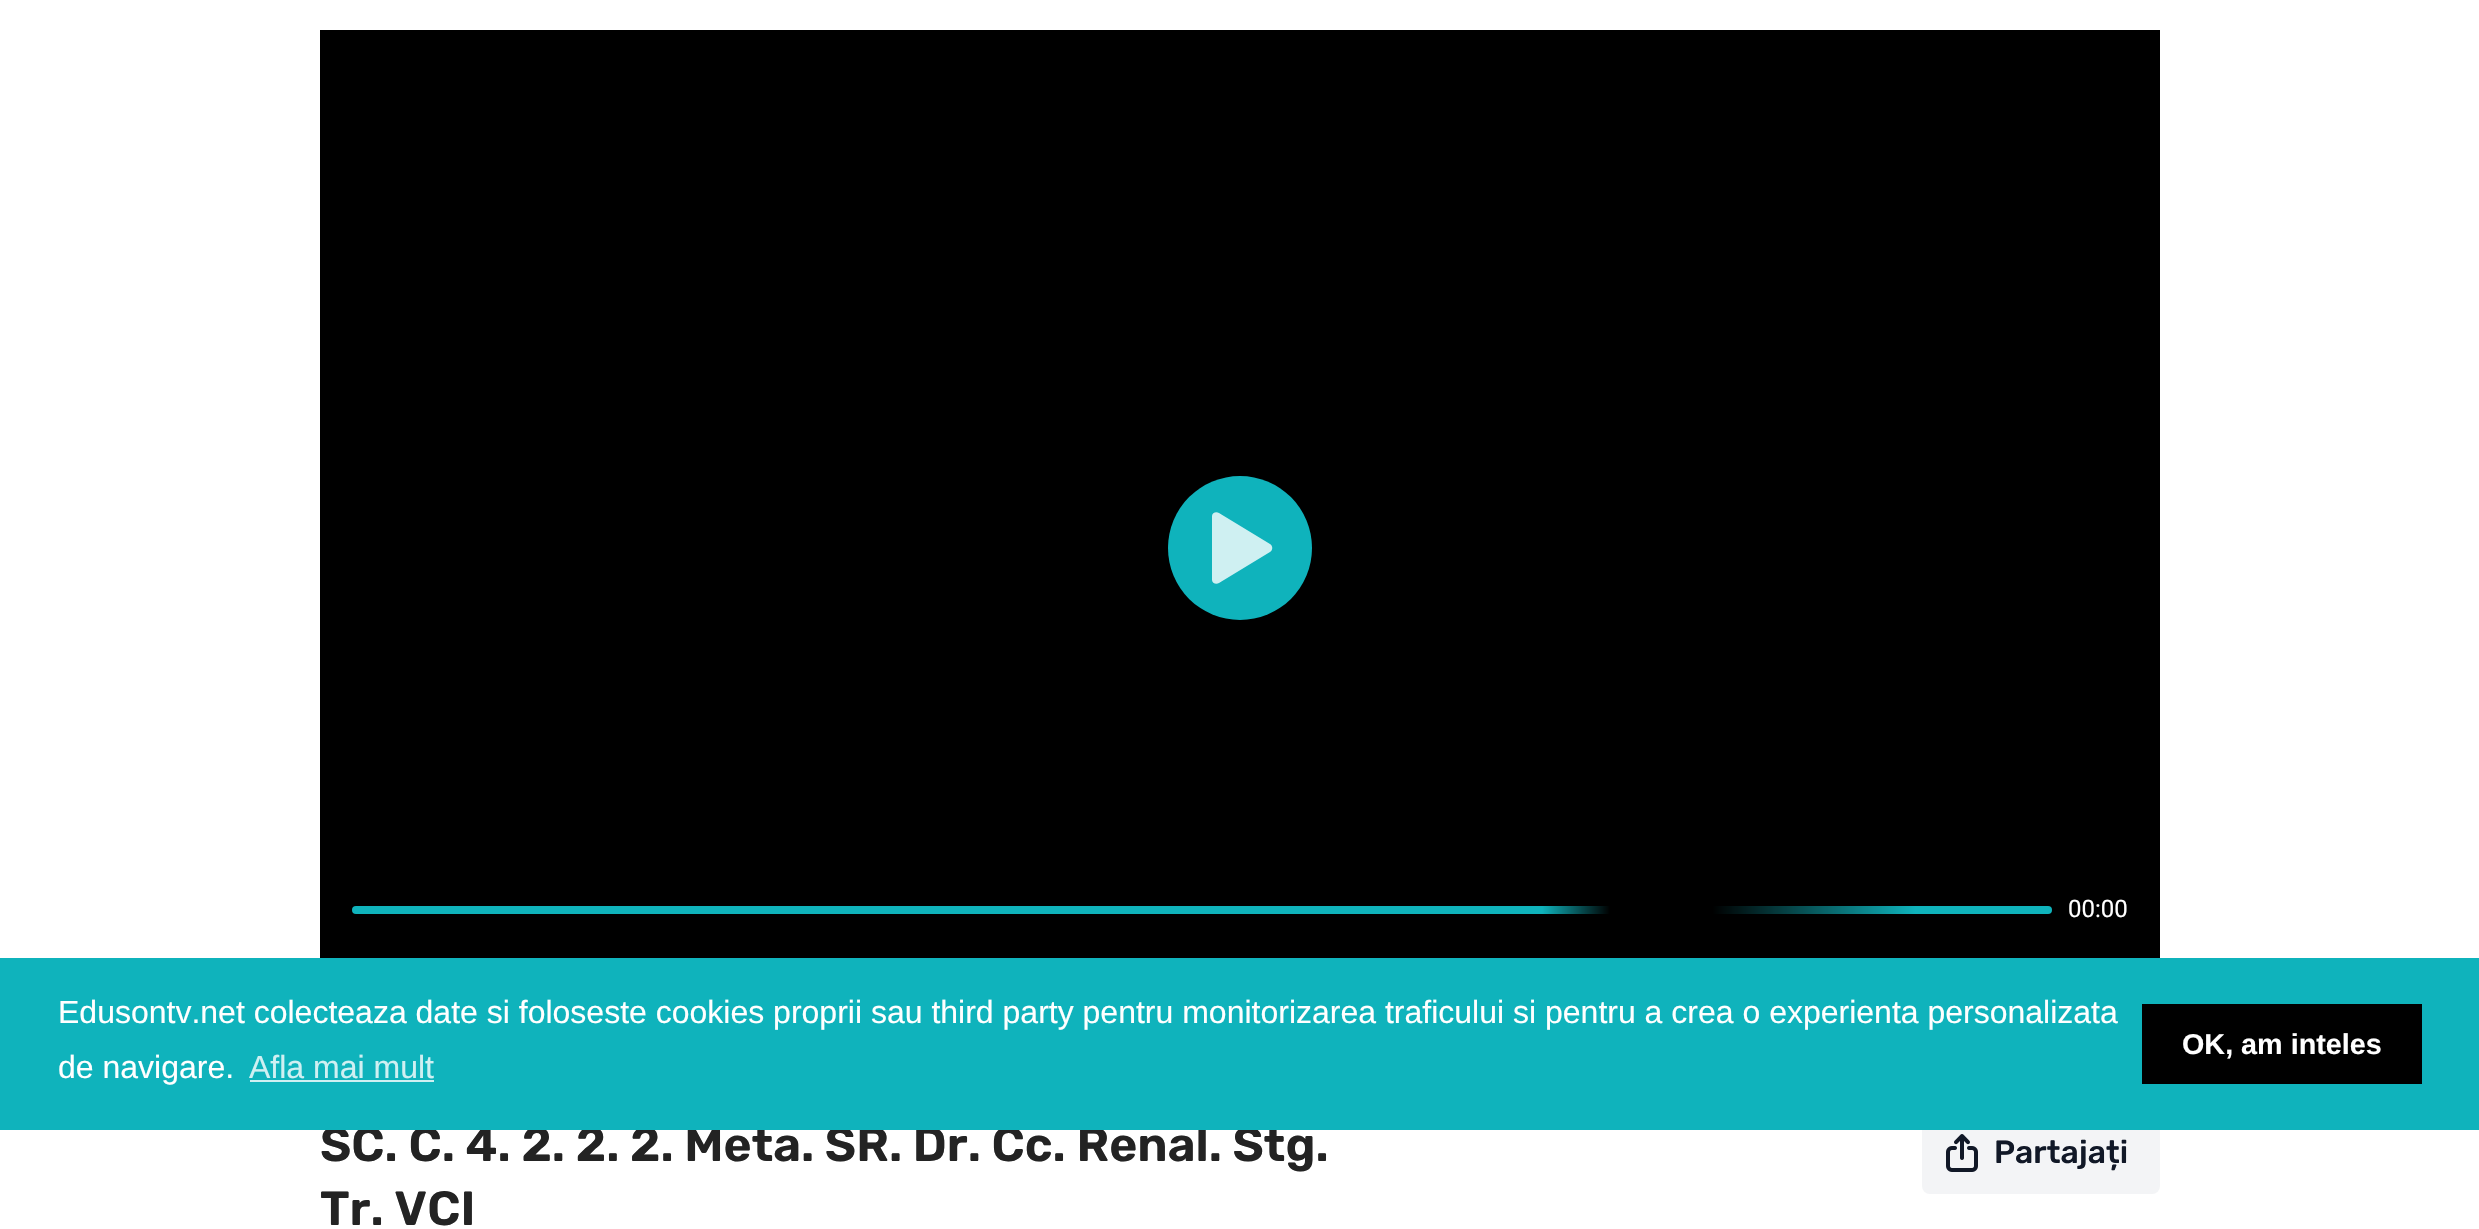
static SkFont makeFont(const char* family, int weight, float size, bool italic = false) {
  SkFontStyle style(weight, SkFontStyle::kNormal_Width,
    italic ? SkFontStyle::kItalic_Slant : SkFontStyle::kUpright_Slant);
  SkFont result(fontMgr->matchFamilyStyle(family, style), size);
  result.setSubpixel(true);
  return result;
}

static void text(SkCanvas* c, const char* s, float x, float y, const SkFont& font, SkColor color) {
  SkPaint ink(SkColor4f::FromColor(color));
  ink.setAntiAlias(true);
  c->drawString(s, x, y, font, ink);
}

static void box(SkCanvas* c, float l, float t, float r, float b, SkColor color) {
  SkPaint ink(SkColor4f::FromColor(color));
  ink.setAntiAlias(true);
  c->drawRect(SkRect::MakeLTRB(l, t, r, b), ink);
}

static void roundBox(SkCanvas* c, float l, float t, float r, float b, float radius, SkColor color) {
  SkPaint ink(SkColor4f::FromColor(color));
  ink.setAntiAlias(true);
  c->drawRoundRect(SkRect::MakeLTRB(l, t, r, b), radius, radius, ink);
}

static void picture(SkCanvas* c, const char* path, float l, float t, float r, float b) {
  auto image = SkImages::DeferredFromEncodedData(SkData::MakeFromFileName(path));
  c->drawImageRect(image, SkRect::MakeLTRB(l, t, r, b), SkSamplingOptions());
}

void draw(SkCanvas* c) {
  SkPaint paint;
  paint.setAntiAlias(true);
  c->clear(0xffffffff);
  box(c, 320, 30, 2160, 958, 0xff000000);
  paint.setColor(0xff0fb3bc);
  c->drawCircle(1240, 548, 72, paint);
  paint.setColor(0xffcff0f2);
  c->drawPath(SkPathBuilder().moveTo(1219, 513).cubicTo(1216, 511, 1212, 513, 1212, 516).lineTo(1212, 580).cubicTo(1212, 583, 1216, 585, 1219, 583).lineTo(1270, 552).cubicTo(1273, 550, 1273, 546, 1270, 544).close().detach(), paint);
  {
    const SkColor colors[] = {0xff0fb3bc, 0xff000000, 0xff000000, 0xff0fb3bc, 0xff0fb3bc};
    const float stops[] = {0.35f, 0.37f, 0.4f, 0.46f, 1};
    const SkPoint ends[] = {{352, 914}, {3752, 914}};
    paint.setShader(SkGradientShader::MakeLinear(ends, colors, stops, 5, SkTileMode::kClamp));
    paint.setAlpha(255);
  }
  c->drawRoundRect(SkRect::MakeLTRB(352, 906, 2052, 914), 4, 4, paint);
  SkFont face1 = makeFont("Roboto", 400, 24);
  text(c, "00:00", 2068, 917, face1, 0xffffffff);
  SkFont face2 = makeFont("Rubik", 600, 48);
  text(c, "SC. C. 4. 2. 2. 2. Meta. SR. Dr. Cc. Renal. Stg.", 320, 1161, face2, 0xff232323);
  text(c, "Tr. VCI", 320, 1225, face2, 0xff232323);
  roundBox(c, 1922, 1114, 2160, 1194, 8, 0xfff3f4f6);
  picture(c, "img_01.png", 1946, 1134, 1978, 1172);
  SkFont face3 = makeFont("Rubik", 500, 32);
  text(c, "Partajați", 1994, 1163, face3, 0xff111827);
  box(c, 0, 958, 2479, 1130, 0xff0fb3bc);
  SkFont face4 = makeFont("Liberation Sans", 400, 32);
  text(c, "Edusontv.net colecteaza date si foloseste cookies proprii sau third party pentru monitorizarea traficului si pentru a crea o experienta personalizata", 58, 1023, face4, 0xffffffff);
  text(c, "de navigare.", 58, 1078, face4, 0xffffffff);
  text(c, "Afla mai mult", 249, 1078, face4, 0xffcff0f2);
  box(c, 250, 1080, 434, 1082, 0xffcff0f2);
  box(c, 2142, 1004, 2422, 1084, 0xff000000);
  SkFont face5 = makeFont("Liberation Sans", 700, 28.75f);
  text(c, "OK, am inteles", 2182, 1054, face5, 0xffffffff);
}
